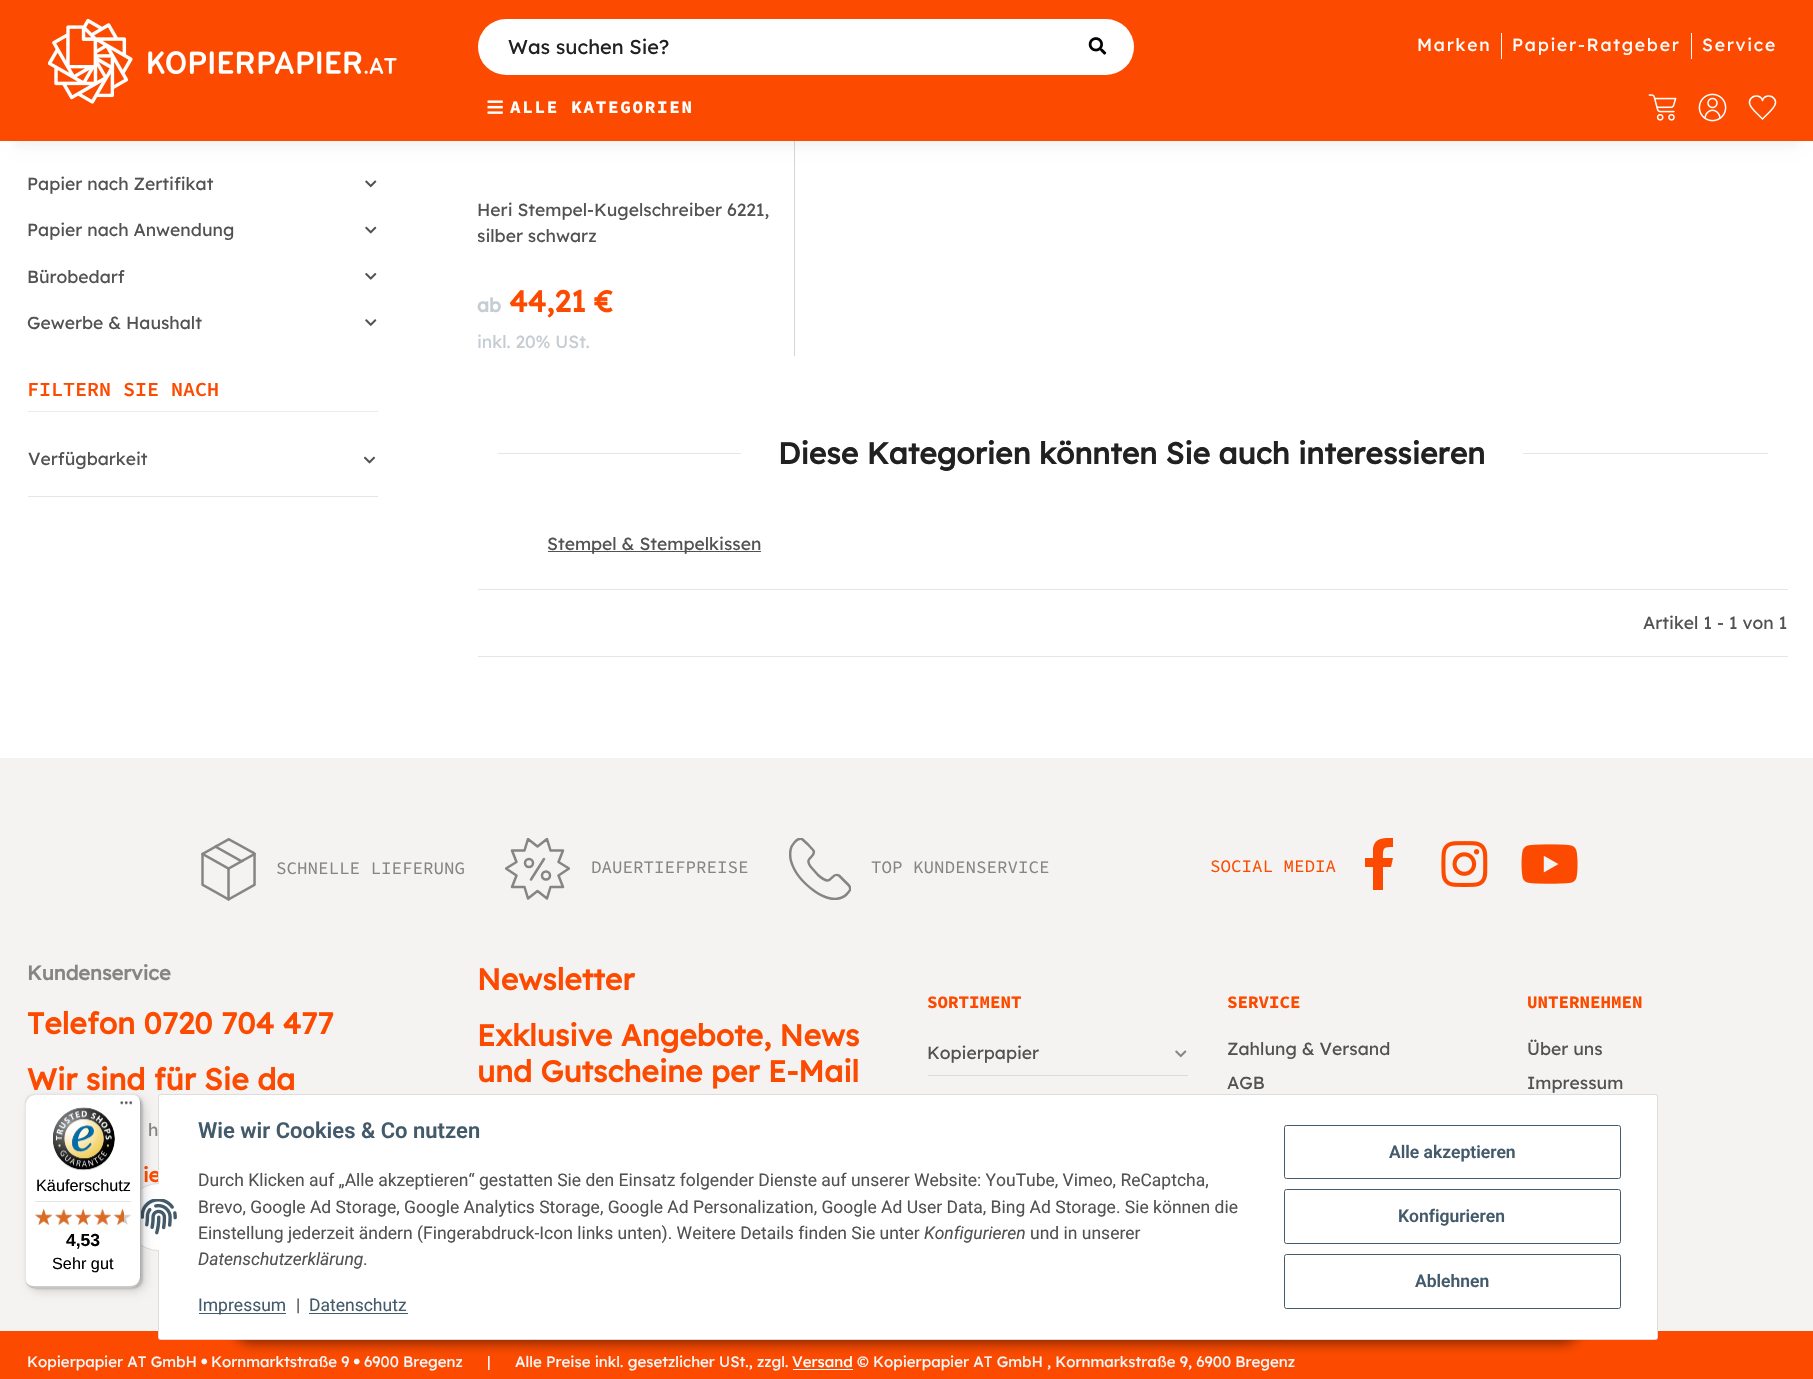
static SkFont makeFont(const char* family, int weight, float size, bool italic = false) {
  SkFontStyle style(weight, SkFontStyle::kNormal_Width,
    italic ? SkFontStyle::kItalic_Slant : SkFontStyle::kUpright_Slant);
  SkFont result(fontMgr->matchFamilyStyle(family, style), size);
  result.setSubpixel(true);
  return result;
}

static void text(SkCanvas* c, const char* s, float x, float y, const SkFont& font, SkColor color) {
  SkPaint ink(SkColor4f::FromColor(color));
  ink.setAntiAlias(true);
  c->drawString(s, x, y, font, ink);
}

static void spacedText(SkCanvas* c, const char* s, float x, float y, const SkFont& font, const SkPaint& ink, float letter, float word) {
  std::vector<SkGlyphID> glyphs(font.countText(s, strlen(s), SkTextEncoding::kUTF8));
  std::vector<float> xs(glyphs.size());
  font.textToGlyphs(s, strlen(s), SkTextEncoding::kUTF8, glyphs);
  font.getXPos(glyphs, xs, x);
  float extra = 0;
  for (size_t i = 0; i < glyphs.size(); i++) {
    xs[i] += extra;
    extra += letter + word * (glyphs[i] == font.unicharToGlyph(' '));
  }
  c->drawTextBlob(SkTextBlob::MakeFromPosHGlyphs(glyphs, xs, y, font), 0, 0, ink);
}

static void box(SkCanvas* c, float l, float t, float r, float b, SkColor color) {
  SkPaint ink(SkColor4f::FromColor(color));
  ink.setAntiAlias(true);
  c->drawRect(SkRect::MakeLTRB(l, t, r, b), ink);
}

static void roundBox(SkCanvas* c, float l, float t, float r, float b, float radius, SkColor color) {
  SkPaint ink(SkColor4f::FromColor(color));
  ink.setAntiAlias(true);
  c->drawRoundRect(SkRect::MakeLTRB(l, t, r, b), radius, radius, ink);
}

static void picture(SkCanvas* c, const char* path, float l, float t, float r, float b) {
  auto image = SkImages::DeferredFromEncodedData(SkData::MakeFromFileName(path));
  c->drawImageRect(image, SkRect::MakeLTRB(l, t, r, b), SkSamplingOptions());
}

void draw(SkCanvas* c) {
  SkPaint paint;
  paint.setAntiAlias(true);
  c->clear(0xffffffff);
  box(c, 794, 141, 795, 356, 0xffd1d6dc);
  paint.setColor(0x0f000000);
  paint.setMaskFilter(SkMaskFilter::MakeBlur(kNormal_SkBlurStyle, 5.5f));
  c->drawRect(SkRect::MakeLTRB(15, 34, 1799, 146), paint);
  paint.setMaskFilter(nullptr);
  box(c, 0, 0, 1813, 141, 0xfffc4b00);
  picture(c, "img_01.png", 48, 19, 397, 104);
  roundBox(c, 478, 19, 1134, 75, 28, 0xffffffff);
  SkFont face1 = makeFont("Lexend Deca", 400, 20);
  text(c, "Was suchen Sie?", 508, 54, face1, 0xff212121);
  picture(c, "img_02.png", 1088, 37, 1107, 55);
  picture(c, "img_03.png", 487, 100, 503, 114);
  SkFont face2 = makeFont("Source Code Pro", 700, 17.5f);
  paint.setColor(0xffffffff);
  spacedText(c, "ALLE KATEGORIEN", 510, 113, face2, paint, 1.75f, 0);
  box(c, 1501, 33, 1502, 59, 0xffffffff);
  SkFont face3 = makeFont("Lexend Deca", 400, 17.5f);
  spacedText(c, "Marken", 1417, 51, face3, paint, 1.75f, 0);
  box(c, 1691, 33, 1692, 59, 0xffffffff);
  spacedText(c, "Papier-Ratgeber", 1512, 51, face3, paint, 1.75f, 0);
  spacedText(c, "Service", 1702, 51, face3, paint, 1.75f, 0);
  picture(c, "img_04.png", 1648, 94, 1677, 121);
  picture(c, "img_05.png", 1698, 93, 1727, 122);
  paint.setStyle(SkPaint::kStroke_Style);
  paint.setStrokeWidth(1.5f);
  paint.setStrokeCap(SkPaint::kRound_Cap);
  paint.setStrokeJoin(SkPaint::kRound_Join);
  c->drawPath(SkPathBuilder().moveTo(1762.5f, 119).lineTo(1754.5f, 111).cubicTo(1751.5f, 107.5f, 1747.5f, 103.5f, 1750.5f, 99).cubicTo(1753.5f, 94.5f, 1761, 95, 1762.5f, 100.5f).cubicTo(1764, 95, 1771.5f, 94.5f, 1774.5f, 99).cubicTo(1777.5f, 103.5f, 1773.5f, 107.5f, 1770.5f, 111).close().detach(), paint);
  text(c, "Papier nach Zertifikat", 27, 190, face3, 0xff525252);
  picture(c, "img_06.png", 365, 180, 377, 188);
  text(c, "Papier nach Anwendung", 27, 236, face3, 0xff525252);
  picture(c, "img_07.png", 365, 226, 377, 234);
  text(c, "Bürobedarf", 27, 283, face3, 0xff525252);
  picture(c, "img_08.png", 365, 273, 377, 280);
  text(c, "Gewerbe & Haushalt", 27, 329, face3, 0xff525252);
  picture(c, "img_09.png", 365, 319, 377, 326);
  box(c, 28, 411, 378, 412, 0xffebebeb);
  SkFont face4 = makeFont("Source Code Pro", 600, 20);
  text(c, "FILTERN SIE NACH", 27, 396, face4, 0xfffc4b00);
  text(c, "Verfügbarkeit", 28, 465, face3, 0xff525252);
  picture(c, "img_10.png", 364, 456, 375, 464);
  box(c, 28, 496, 378, 497, 0xffe6e6e6);
  text(c, "Heri Stempel-Kugelschreiber 6221,", 477, 216, face3, 0xff525252);
  c->save();
  c->clipRect(SkRect::MakeLTRB(478, 198, 774, 250));
  text(c, "silber schwarz", 477, 242, face3, 0xff525252);
  c->restore();
  SkFont face5 = makeFont("Lexend Deca", 700, 19);
  text(c, "ab", 477, 312, face5, 0xffc5ccd2);
  SkFont face6 = makeFont("Lexend Deca", 700, 30);
  text(c, "44,21 €", 509, 312, face6, 0xfffc4b00);
  text(c, "inkl. 20% USt.", 477, 348, face3, 0xffc5ccd2);
  box(c, 498, 453, 741, 454, 0xffe6e6e6);
  text(c, "Diese Kategorien könnten Sie auch interessieren", 778, 464, face6, 0xff212121);
  box(c, 1523, 453, 1768, 454, 0xffe6e6e6);
  box(c, 548, 551, 761, 552, 0xff525252);
  text(c, "Stempel & Stempelkissen", 547, 550, face3, 0xff525252);
  box(c, 478, 589, 1788, 590, 0xffe6e6e6);
  text(c, "Artikel 1 - 1 von 1", 1643, 629, face3, 0xff525252);
  box(c, 478, 656, 1788, 657, 0xffe6e6e6);
  box(c, 0, 758, 1813, 1331, 0xfff5f2f2);
  picture(c, "img_11.png", 201, 838, 256, 901);
  SkFont face7 = makeFont("Source Code Pro", 400, 17.5f);
  text(c, "SCHNELLE LIEFERUNG", 276, 874, face7, 0xff868484);
  c->save();
  c->clipRect(SkRect::MakeLTRB(505, 838, 570, 900));
  paint.setStrokeWidth(2.5f);
  paint.setColor(0xff868484);
  c->drawPath(SkPathBuilder().moveTo(537.5f, 846.5f).lineTo(547, 839).lineTo(550.5f, 850.5f).lineTo(563, 850.5f).lineTo(558.5f, 862).lineTo(569, 868.5f).lineTo(558.5f, 875.5f).lineTo(563, 887).lineTo(550.5f, 887).lineTo(547, 898.5f).lineTo(537.5f, 891).lineTo(528, 898.5f).lineTo(524.5f, 887).lineTo(512, 887).lineTo(516.5f, 875.5f).lineTo(506, 868.5f).lineTo(516.5f, 862).lineTo(512, 850.5f).lineTo(524.5f, 850.5f).lineTo(528, 839).close().detach(), paint);
  c->restore();
  c->drawPath(SkPathBuilder().moveTo(544, 859).lineTo(531, 879.5f).detach(), paint);
  paint.setStrokeCap(SkPaint::kButt_Cap);
  paint.setStrokeJoin(SkPaint::kMiter_Join);
  c->drawCircle(529, 863, 4, paint);
  text(c, "DAUERTIEFPREISE", 591, 873, face7, 0xff868484);
  c->drawCircle(546, 875.5f, 4, paint);
  c->save();
  c->clipRect(SkRect::MakeLTRB(789, 838, 851, 900));
  paint.setStrokeCap(SkPaint::kRound_Cap);
  paint.setStrokeJoin(SkPaint::kRound_Join);
  c->drawPath(SkPathBuilder().moveTo(848.5f, 885).lineTo(839, 875.5f).cubicTo(830, 871, 833.5f, 889, 818, 875).lineTo(810.5f, 866.5f).cubicTo(803.5f, 857, 816.5f, 857.5f, 813.5f, 850.5f).lineTo(808, 844.5f).lineTo(802, 839).cubicTo(797, 837, 791, 846, 790.5f, 850).cubicTo(790, 854, 790, 857.5f, 791, 861).cubicTo(794.5f, 873.5f, 804.5f, 884, 815, 891.5f).cubicTo(823.5f, 897.5f, 837.5f, 903, 846.5f, 894.5f).cubicTo(847.5f, 893, 849, 892, 850, 890).cubicTo(850.5f, 888, 850, 886.5f, 848.5f, 885).close().detach(), paint);
  c->restore();
  text(c, "TOP KUNDENSERVICE", 871, 873, face7, 0xff868484);
  text(c, "SOCIAL MEDIA", 1210, 872, face7, 0xfffc4b00);
  paint.setStyle(SkPaint::kFill_Style);
  paint.setColor(0xfffc4b00);
  c->drawPath(SkPathBuilder().moveTo(1391, 867).lineTo(1383, 867).lineTo(1383, 890).lineTo(1373, 890).lineTo(1373, 867).lineTo(1365, 867).lineTo(1365, 858).lineTo(1373, 858).lineTo(1373, 848).cubicTo(1375, 837, 1385, 838, 1393, 838).lineTo(1393, 847).cubicTo(1383, 847, 1383, 848, 1383, 858).lineTo(1393, 858).close().detach(), paint);
  picture(c, "img_12.png", 1441, 841, 1488, 887);
  picture(c, "img_13.png", 1521, 844, 1578, 884);
  SkFont face8 = makeFont("Lexend Deca", 700, 20);
  text(c, "Kundenservice", 27, 980, face8, 0xff868484);
  text(c, "Telefon 0720 704 477", 27, 1034, face6, 0xfffc4b00);
  text(c, "Wir sind für Sie da", 27, 1090, face6, 0xfffc4b00);
  text(c, "h", 148, 1136, face3, 0xff868484);
  text(c, "ie", 143, 1182, face8, 0xfffc4b00);
  text(c, "Newsletter", 477, 990, face6, 0xfffc4b00);
  text(c, "Exklusive Angebote, News", 477, 1046, face6, 0xfffc4b00);
  text(c, "und Gutscheine per E-Mail", 477, 1082, face6, 0xfffc4b00);
  text(c, "SORTIMENT", 927, 1008, face2, 0xfffc4b00);
  box(c, 928, 1075, 1188, 1076, 0xffdddada);
  text(c, "Kopierpapier", 927, 1059, face3, 0xff525252);
  picture(c, "img_14.png", 1175, 1050, 1187, 1058);
  text(c, "SERVICE", 1227, 1008, face2, 0xfffc4b00);
  text(c, "Zahlung & Versand", 1227, 1055, face3, 0xff525252);
  text(c, "AGB", 1227, 1089, face3, 0xff525252);
  text(c, "UNTERNEHMEN", 1527, 1008, face2, 0xfffc4b00);
  text(c, "Über uns", 1527, 1055, face3, 0xff525252);
  text(c, "Impressum", 1527, 1089, face3, 0xff525252);
  box(c, 0, 1331, 1813, 1379, 0xfffc4b00);
  SkFont face9 = makeFont("Lexend Deca", 400, 15);
  text(c, "Kopierpapier AT GmbH", 27, 1367, face9, 0xfff5f7fa);
  picture(c, "img_15.png", 201, 1358, 208, 1365);
  text(c, "Kornmarktstraße 9", 211, 1367, face9, 0xfff5f7fa);
  picture(c, "img_16.png", 353, 1358, 360, 1365);
  text(c, "6900 Bregenz", 364, 1367, face9, 0xfff5f7fa);
  text(c, "|", 487, 1367, face9, 0xfff5f7fa);
  text(c, "Alle Preise inkl. gesetzlicher USt., zzgl.", 515, 1367, face9, 0xfff5f7fa);
  text(c, "Versand", 792, 1367, face9, 0xffffffff);
  box(c, 793, 1369, 853, 1370, 0xffffffff);
  text(c, "© Kopierpapier AT GmbH , Kornmarkstraße 9, 6900 Bregenz", 857, 1367, face9, 0xfff5f7fa);
  paint.setColor(0x73000000);
  paint.setMaskFilter(SkMaskFilter::MakeBlur(kNormal_SkBlurStyle, 6));
  c->drawRoundRect(SkRect::MakeLTRB(233, 1304, 1581, 1344), 20, 20, paint);
  paint.setMaskFilter(nullptr);
  paint.setColor(0xffffffff);
  c->drawRoundRect(SkRect::MakeLTRB(158.5f, 1094.5f, 1657.5f, 1339.5f), 2, 2, paint);
  paint.setStyle(SkPaint::kStroke_Style);
  paint.setStrokeWidth(1);
  paint.setStrokeCap(SkPaint::kButt_Cap);
  paint.setStrokeJoin(SkPaint::kMiter_Join);
  paint.setColor(0xffdddddd);
  c->drawRoundRect(SkRect::MakeLTRB(158.5f, 1094.5f, 1657.5f, 1339.5f), 2, 2, paint);
  paint.setStyle(SkPaint::kFill_Style);
  paint.setColor(0xffffffff);
  c->drawRoundRect(SkRect::MakeLTRB(125.5f, 1183.5f, 193.5f, 1250.5f), 33.5f, 33.5f, paint);
  paint.setStyle(SkPaint::kStroke_Style);
  paint.setColor(0xffdddddd);
  c->drawRoundRect(SkRect::MakeLTRB(125.5f, 1183.5f, 193.5f, 1250.5f), 33.5f, 33.5f, paint);
  box(c, 159, 1183, 194, 1251, 0xffffffff);
  picture(c, "img_29.png", 141, 1199, 177, 1235);
  paint.setStyle(SkPaint::kFill_Style);
  paint.setColor(0x26000000);
  paint.setMaskFilter(SkMaskFilter::MakeBlur(kNormal_SkBlurStyle, 5));
  c->drawRoundRect(SkRect::MakeLTRB(29, 1098, 145, 1291), 10, 10, paint);
  paint.setMaskFilter(nullptr);
  paint.setMaskFilter(SkMaskFilter::MakeBlur(kNormal_SkBlurStyle, 1));
  c->drawRoundRect(SkRect::MakeLTRB(26, 1095, 143, 1289), 10, 10, paint);
  paint.setMaskFilter(nullptr);
  roundBox(c, 25, 1094, 141, 1288, 10, 0xffffffff);
  paint.setColor(0x1a000000);
  c->drawPath(SkPathBuilder().moveTo(36, 1095).lineTo(132, 1095).cubicTo(134, 1095, 136, 1095, 137, 1096).cubicTo(136, 1095, 133, 1094, 131, 1094).lineTo(35, 1094).cubicTo(29, 1094, 25, 1098, 25, 1104).lineTo(25, 1278).cubicTo(25, 1282, 27, 1285, 30, 1287).cubicTo(28, 1285, 26, 1282, 26, 1279).lineTo(26, 1105).cubicTo(26, 1099, 31, 1095, 36, 1095).close().detach(), paint);
  paint.setColor(0x33000000);
  c->drawPath(SkPathBuilder().moveTo(26, 1282).cubicTo(28, 1286, 31, 1288, 35, 1288).lineTo(131, 1288).cubicTo(137, 1288, 141, 1284, 141, 1278).lineTo(141, 1104).cubicTo(141, 1102, 140, 1100, 139, 1098).lineTo(140, 1102).lineTo(140, 1276).cubicTo(140, 1282, 136, 1286, 130, 1286).lineTo(34, 1286).cubicTo(31, 1286, 28, 1285, 26, 1282).close().detach(), paint);
  paint.setColor(0x33323232);
  c->drawPath(SkPathBuilder().moveTo(26, 1283).cubicTo(28, 1286, 31, 1288, 35, 1288).lineTo(131, 1288).cubicTo(137, 1288, 141, 1284, 141, 1278).lineTo(141, 1104).cubicTo(141, 1102, 140, 1099, 139, 1098).cubicTo(140, 1099, 140, 1101, 140, 1103).lineTo(140, 1277).cubicTo(140, 1282, 136, 1287, 130, 1287).lineTo(34, 1287).cubicTo(31, 1287, 28, 1285, 26, 1283).close().detach(), paint);
  picture(c, "img_17.png", 120, 1101, 133, 1105);
  paint.setColor(0x4dffffff);
  c->drawPath(SkPathBuilder().moveTo(26, 1283).cubicTo(28, 1286, 31, 1288, 35, 1288).lineTo(131, 1288).cubicTo(137, 1288, 141, 1284, 141, 1278).lineTo(141, 1277).cubicTo(141, 1282, 136, 1287, 131, 1287).lineTo(34, 1287).cubicTo(31, 1287, 28, 1285, 26, 1283).close().detach(), paint);
  picture(c, "img_18.png", 53, 1107, 115, 1171);
  SkFont face10 = makeFont("Liberation Sans", 400, 16.25f);
  text(c, "Käuferschutz", 36, 1191, face10, 0xff000000);
  box(c, 35, 1201, 131, 1202, 0xffe5e5e5);
  picture(c, "img_24.png", 35, 1209, 52, 1225);
  picture(c, "img_19.png", 35, 1208, 52, 1225);
  picture(c, "img_25.png", 55, 1209, 72, 1225);
  picture(c, "img_20.png", 55, 1208, 73, 1225);
  picture(c, "img_26.png", 75, 1209, 91, 1225);
  picture(c, "img_21.png", 75, 1208, 91, 1225);
  picture(c, "img_27.png", 93, 1209, 111, 1225);
  picture(c, "img_22.png", 93, 1208, 111, 1225);
  picture(c, "img_28.png", 114, 1209, 131, 1225);
  picture(c, "img_23.png", 114, 1208, 124, 1225);
  SkFont face11 = makeFont("Liberation Sans", 700, 17.5f);
  text(c, "4,53", 66, 1246, face11, 0xff000000);
  text(c, "Sehr gut", 52, 1269, face10, 0xff000000);
  SkFont face12 = makeFont("Roboto", 600, 22);
  text(c, "Wie wir Cookies & Co nutzen", 198, 1138, face12, 0xff435a6b);
  SkFont face13 = makeFont("Roboto", 400, 17.5f);
  text(c, "Durch Klicken auf „Alle akzeptieren“ gestatten Sie den Einsatz folgender Dienste auf unserer Website: YouTube, Vimeo, ReCaptcha,", 198, 1186, face13, 0xff525252);
  text(c, "Brevo, Google Ad Storage, Google Analytics Storage, Google Ad Personalization, Google Ad User Data, Bing Ad Storage. Sie können die", 198, 1213, face13, 0xff525252);
  text(c, "Einstellung jederzeit ändern (Fingerabdruck-Icon links unten). Weitere Details finden Sie unter", 198, 1239, face13, 0xff525252);
  SkFont face14 = makeFont("Roboto", 400, 17.5f, true);
  text(c, "Konfigurieren", 924, 1239, face14, 0xff525252);
  text(c, "und in unserer", 1030, 1239, face13, 0xff525252);
  text(c, "Datenschutzerklärung", 198, 1265, face14, 0xff525252);
  text(c, ".", 363, 1265, face13, 0xff525252);
  box(c, 199, 1313, 286, 1314, 0xff435a6b);
  text(c, "Impressum", 198, 1311, face13, 0xff435a6b);
  text(c, "|", 296, 1311, face13, 0xff525252);
  text(c, "Datenschutz", 309, 1311, face13, 0xff435a6b);
  box(c, 309, 1313, 408, 1314, 0xff435a6b);
  paint.setStyle(SkPaint::kStroke_Style);
  paint.setColor(0xff435a6b);
  c->drawRoundRect(SkRect::MakeLTRB(1284.5f, 1125.5f, 1620.5f, 1178.5f), 2, 2, paint);
  SkFont face15 = makeFont("Roboto", 600, 17.5f);
  text(c, "Alle akzeptieren", 1389, 1158, face15, 0xff435a6b);
  c->drawRoundRect(SkRect::MakeLTRB(1284.5f, 1189.5f, 1620.5f, 1243.5f), 2, 2, paint);
  text(c, "Konfigurieren", 1398, 1222, face15, 0xff435a6b);
  c->drawRoundRect(SkRect::MakeLTRB(1284.5f, 1254.5f, 1620.5f, 1308.5f), 2, 2, paint);
  text(c, "Ablehnen", 1415, 1287, face15, 0xff435a6b);
}
